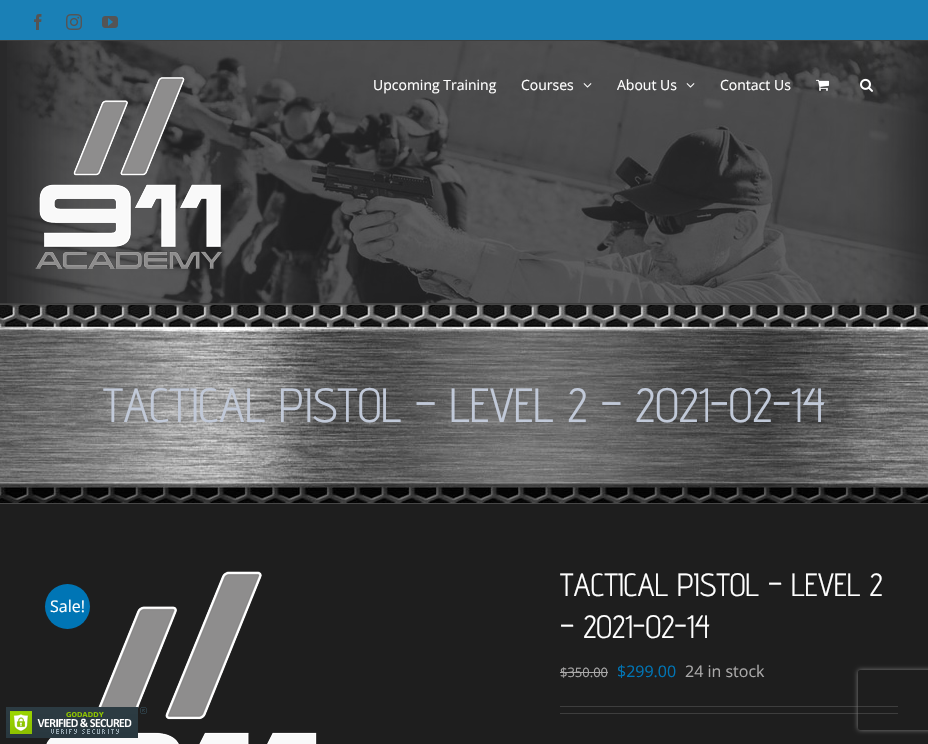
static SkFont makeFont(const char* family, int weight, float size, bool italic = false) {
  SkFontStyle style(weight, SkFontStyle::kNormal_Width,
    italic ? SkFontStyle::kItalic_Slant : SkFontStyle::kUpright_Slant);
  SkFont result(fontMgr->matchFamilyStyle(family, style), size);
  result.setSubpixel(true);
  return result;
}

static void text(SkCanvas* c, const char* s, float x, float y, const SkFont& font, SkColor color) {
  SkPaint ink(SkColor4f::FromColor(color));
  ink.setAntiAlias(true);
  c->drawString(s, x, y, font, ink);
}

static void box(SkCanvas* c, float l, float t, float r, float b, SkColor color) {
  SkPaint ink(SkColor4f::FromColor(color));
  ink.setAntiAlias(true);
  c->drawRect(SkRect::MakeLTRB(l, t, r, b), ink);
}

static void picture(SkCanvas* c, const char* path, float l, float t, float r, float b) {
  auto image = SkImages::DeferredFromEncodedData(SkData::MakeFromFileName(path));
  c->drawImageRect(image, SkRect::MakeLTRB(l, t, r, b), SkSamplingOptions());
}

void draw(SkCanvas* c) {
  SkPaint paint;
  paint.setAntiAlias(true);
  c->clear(0xff1e1e1e);
  box(c, 0, 0, 928, 40, 0xff1a80b6);
  box(c, 0, 40, 928, 41, 0xff3e3e3e);
  picture(c, "img_01.png", 34, 14, 42, 30);
  picture(c, "img_02.png", 66, 14, 82, 30);
  picture(c, "img_03.png", 102, 16, 118, 28);
  box(c, 0, 41, 928, 303, 0xff29292a);
  picture(c, "img_04.png", 7, 41, 928, 303);
  box(c, 0, 303, 928, 304, 0xff3e3e3e);
  picture(c, "img_05.png", 35, 77, 223, 269);
  SkFont face1 = makeFont("Open Sans", 400, 14);
  text(c, "Upcoming Training", 373, 90, face1, 0xffffffff);
  text(c, "Courses", 521, 90, face1, 0xffffffff);
  picture(c, "img_06.png", 583, 83, 592, 88);
  text(c, "About Us", 617, 90, face1, 0xffffffff);
  picture(c, "img_07.png", 686, 83, 695, 88);
  text(c, "Contact Us", 720, 90, face1, 0xffffffff);
  picture(c, "img_08.png", 816, 79, 829, 91);
  picture(c, "img_09.png", 860, 78, 873, 92);
  picture(c, "img_10.png", 0, 305, 928, 503);
  box(c, 0, 304, 928, 305, 0xff464646);
  box(c, 0, 503, 928, 504, 0xff464646);
  SkFont face2 = makeFont("Advent Pro", 400, 48);
  text(c, "TACTICAL PISTOL – LEVEL 2 – 2021-02-14", 103, 422, face2, 0xffc1c9d8);
  picture(c, "img_11.png", 46, 571, 317, 744);
  paint.setColor(0xff0075b5);
  c->drawCircle(67.5f, 606.5f, 22.5f, paint);
  SkFont face3 = makeFont("Open Sans", 400, 16);
  text(c, "Sale!", 50, 612, face3, 0xffffffff);
  SkFont face4 = makeFont("Advent Pro", 400, 32);
  text(c, "TACTICAL PISTOL – LEVEL 2", 560, 596, face4, 0xffffffff);
  text(c, "– 2021-02-14", 560, 638, face4, 0xffffffff);
  SkFont face5 = makeFont("Open Sans", 400, 13);
  text(c, "$350.00", 560, 677, face5, 0xffaaa9a9);
  box(c, 560, 672, 608, 673, 0xffaaa9a9);
  text(c, "$299.00", 617, 677, face3, 0xff0075b5);
  text(c, "24 in stock", 685, 677, face3, 0xffaaa9a9);
  box(c, 560, 706, 898, 707, 0xff3e3e3e);
  box(c, 560, 713, 898, 714, 0xff3e3e3e);
  picture(c, "img_12.png", 6, 707, 147, 738);
  c->save();
  c->clipPath(SkPathBuilder(SkPathFillType::kEvenOdd).moveTo(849, 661).lineTo(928, 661).lineTo(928, 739).lineTo(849, 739).close().moveTo(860, 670).lineTo(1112, 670).cubicTo(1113, 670, 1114, 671, 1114, 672).lineTo(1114, 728).cubicTo(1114, 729, 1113, 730, 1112, 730).lineTo(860, 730).cubicTo(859, 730, 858, 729, 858, 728).lineTo(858, 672).cubicTo(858, 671, 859, 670, 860, 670).close().detach(), true);
  paint.setColor(0xff808080);
  paint.setMaskFilter(SkMaskFilter::MakeBlur(kNormal_SkBlurStyle, 2.5f));
  c->drawRoundRect(SkRect::MakeLTRB(858, 670, 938, 730), 2, 2, paint);
  paint.setMaskFilter(nullptr);
  c->restore();
}
